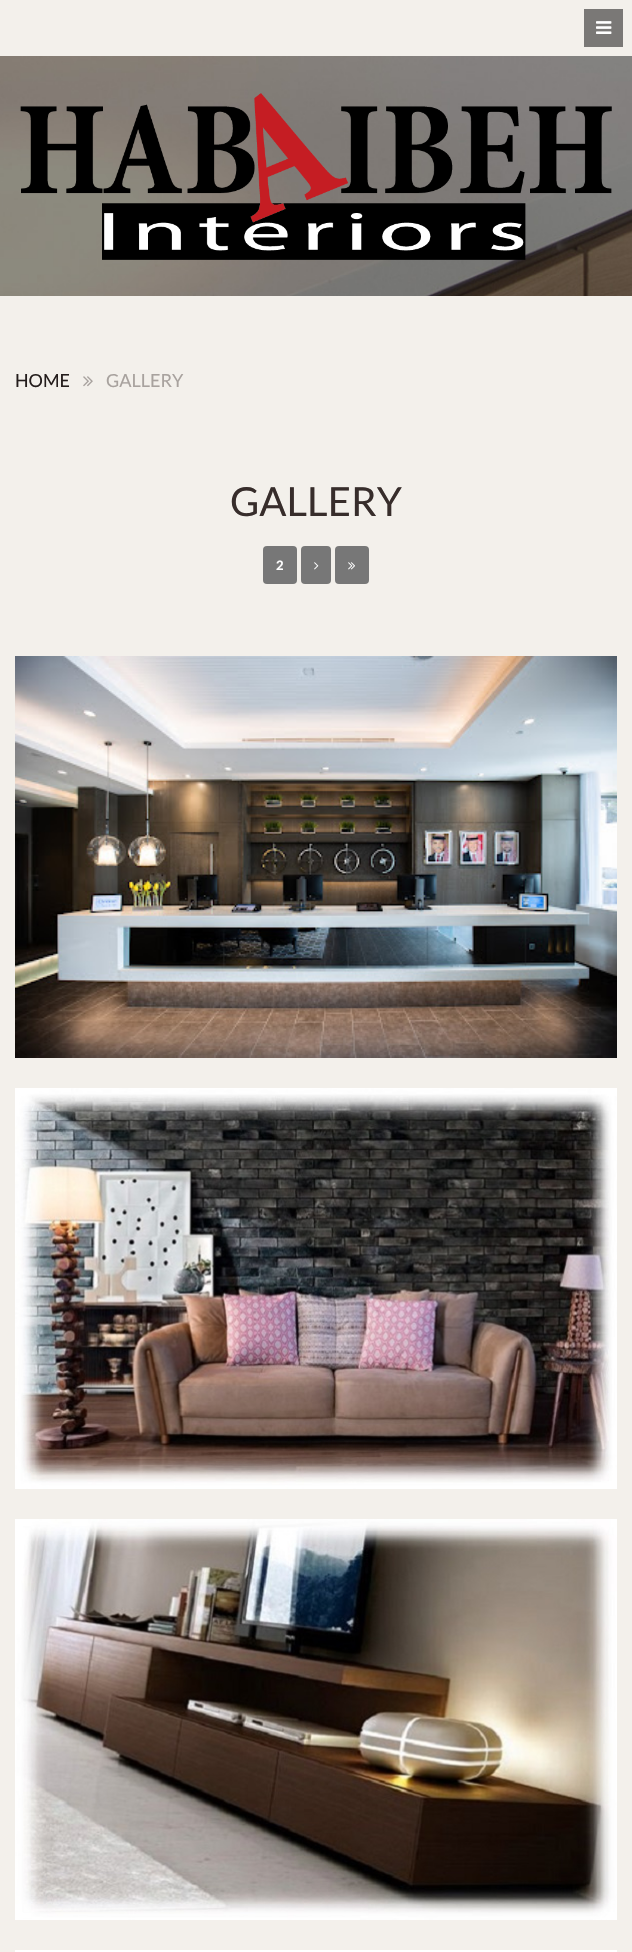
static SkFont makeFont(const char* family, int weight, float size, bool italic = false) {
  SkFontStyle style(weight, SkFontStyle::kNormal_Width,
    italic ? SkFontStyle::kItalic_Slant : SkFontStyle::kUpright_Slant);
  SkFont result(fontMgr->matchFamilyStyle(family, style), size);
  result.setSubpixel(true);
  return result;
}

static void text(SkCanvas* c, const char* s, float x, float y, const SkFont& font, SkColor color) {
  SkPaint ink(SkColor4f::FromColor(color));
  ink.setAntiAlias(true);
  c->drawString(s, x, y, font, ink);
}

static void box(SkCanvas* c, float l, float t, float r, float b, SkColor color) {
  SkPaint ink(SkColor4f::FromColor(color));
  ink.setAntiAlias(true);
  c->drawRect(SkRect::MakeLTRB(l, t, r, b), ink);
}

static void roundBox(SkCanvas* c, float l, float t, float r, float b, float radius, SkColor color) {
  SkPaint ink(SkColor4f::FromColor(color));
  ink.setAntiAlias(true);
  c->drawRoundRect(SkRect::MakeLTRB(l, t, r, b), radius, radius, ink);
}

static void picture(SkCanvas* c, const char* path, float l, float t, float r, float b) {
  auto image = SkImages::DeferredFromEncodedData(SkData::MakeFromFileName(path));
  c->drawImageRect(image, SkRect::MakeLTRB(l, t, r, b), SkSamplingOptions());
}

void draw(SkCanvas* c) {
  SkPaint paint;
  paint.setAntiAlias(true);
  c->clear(0xfff3f0eb);
  box(c, 584, 9, 623, 47, 0xff7a7876);
  picture(c, "img_01.png", 596, 21, 612, 34);
  picture(c, "img_02.png", 0, 56, 632, 296);
  picture(c, "img_03.png", 20, 93, 612, 260);
  SkFont face1 = makeFont("Lato", 400, 18);
  text(c, "HOME", 15, 387, face1, 0xff241d1c);
  picture(c, "img_04.png", 83, 376, 93, 387);
  text(c, "GALLERY", 106, 387, face1, 0xffa8a29e);
  SkFont face2 = makeFont("Lato", 400, 40);
  text(c, "GALLERY", 230, 516, face2, 0xff372d2b);
  roundBox(c, 263, 546, 297, 584, 4, 0xff777777);
  SkFont face3 = makeFont("Lato", 700, 13);
  text(c, "2", 276, 570, face3, 0xffffffff);
  roundBox(c, 301, 546, 331, 584, 4, 0xff777777);
  picture(c, "img_05.png", 314, 562, 319, 570);
  roundBox(c, 335, 546, 369, 584, 4, 0xff777777);
  picture(c, "img_06.png", 348, 562, 355, 570);
  picture(c, "img_07.png", 15, 656, 617, 1058);
  picture(c, "img_08.png", 15, 1088, 617, 1489);
  picture(c, "img_09.png", 15, 1519, 617, 1920);
  box(c, 15, 1950, 617, 1952, 0xffffffff);
}
